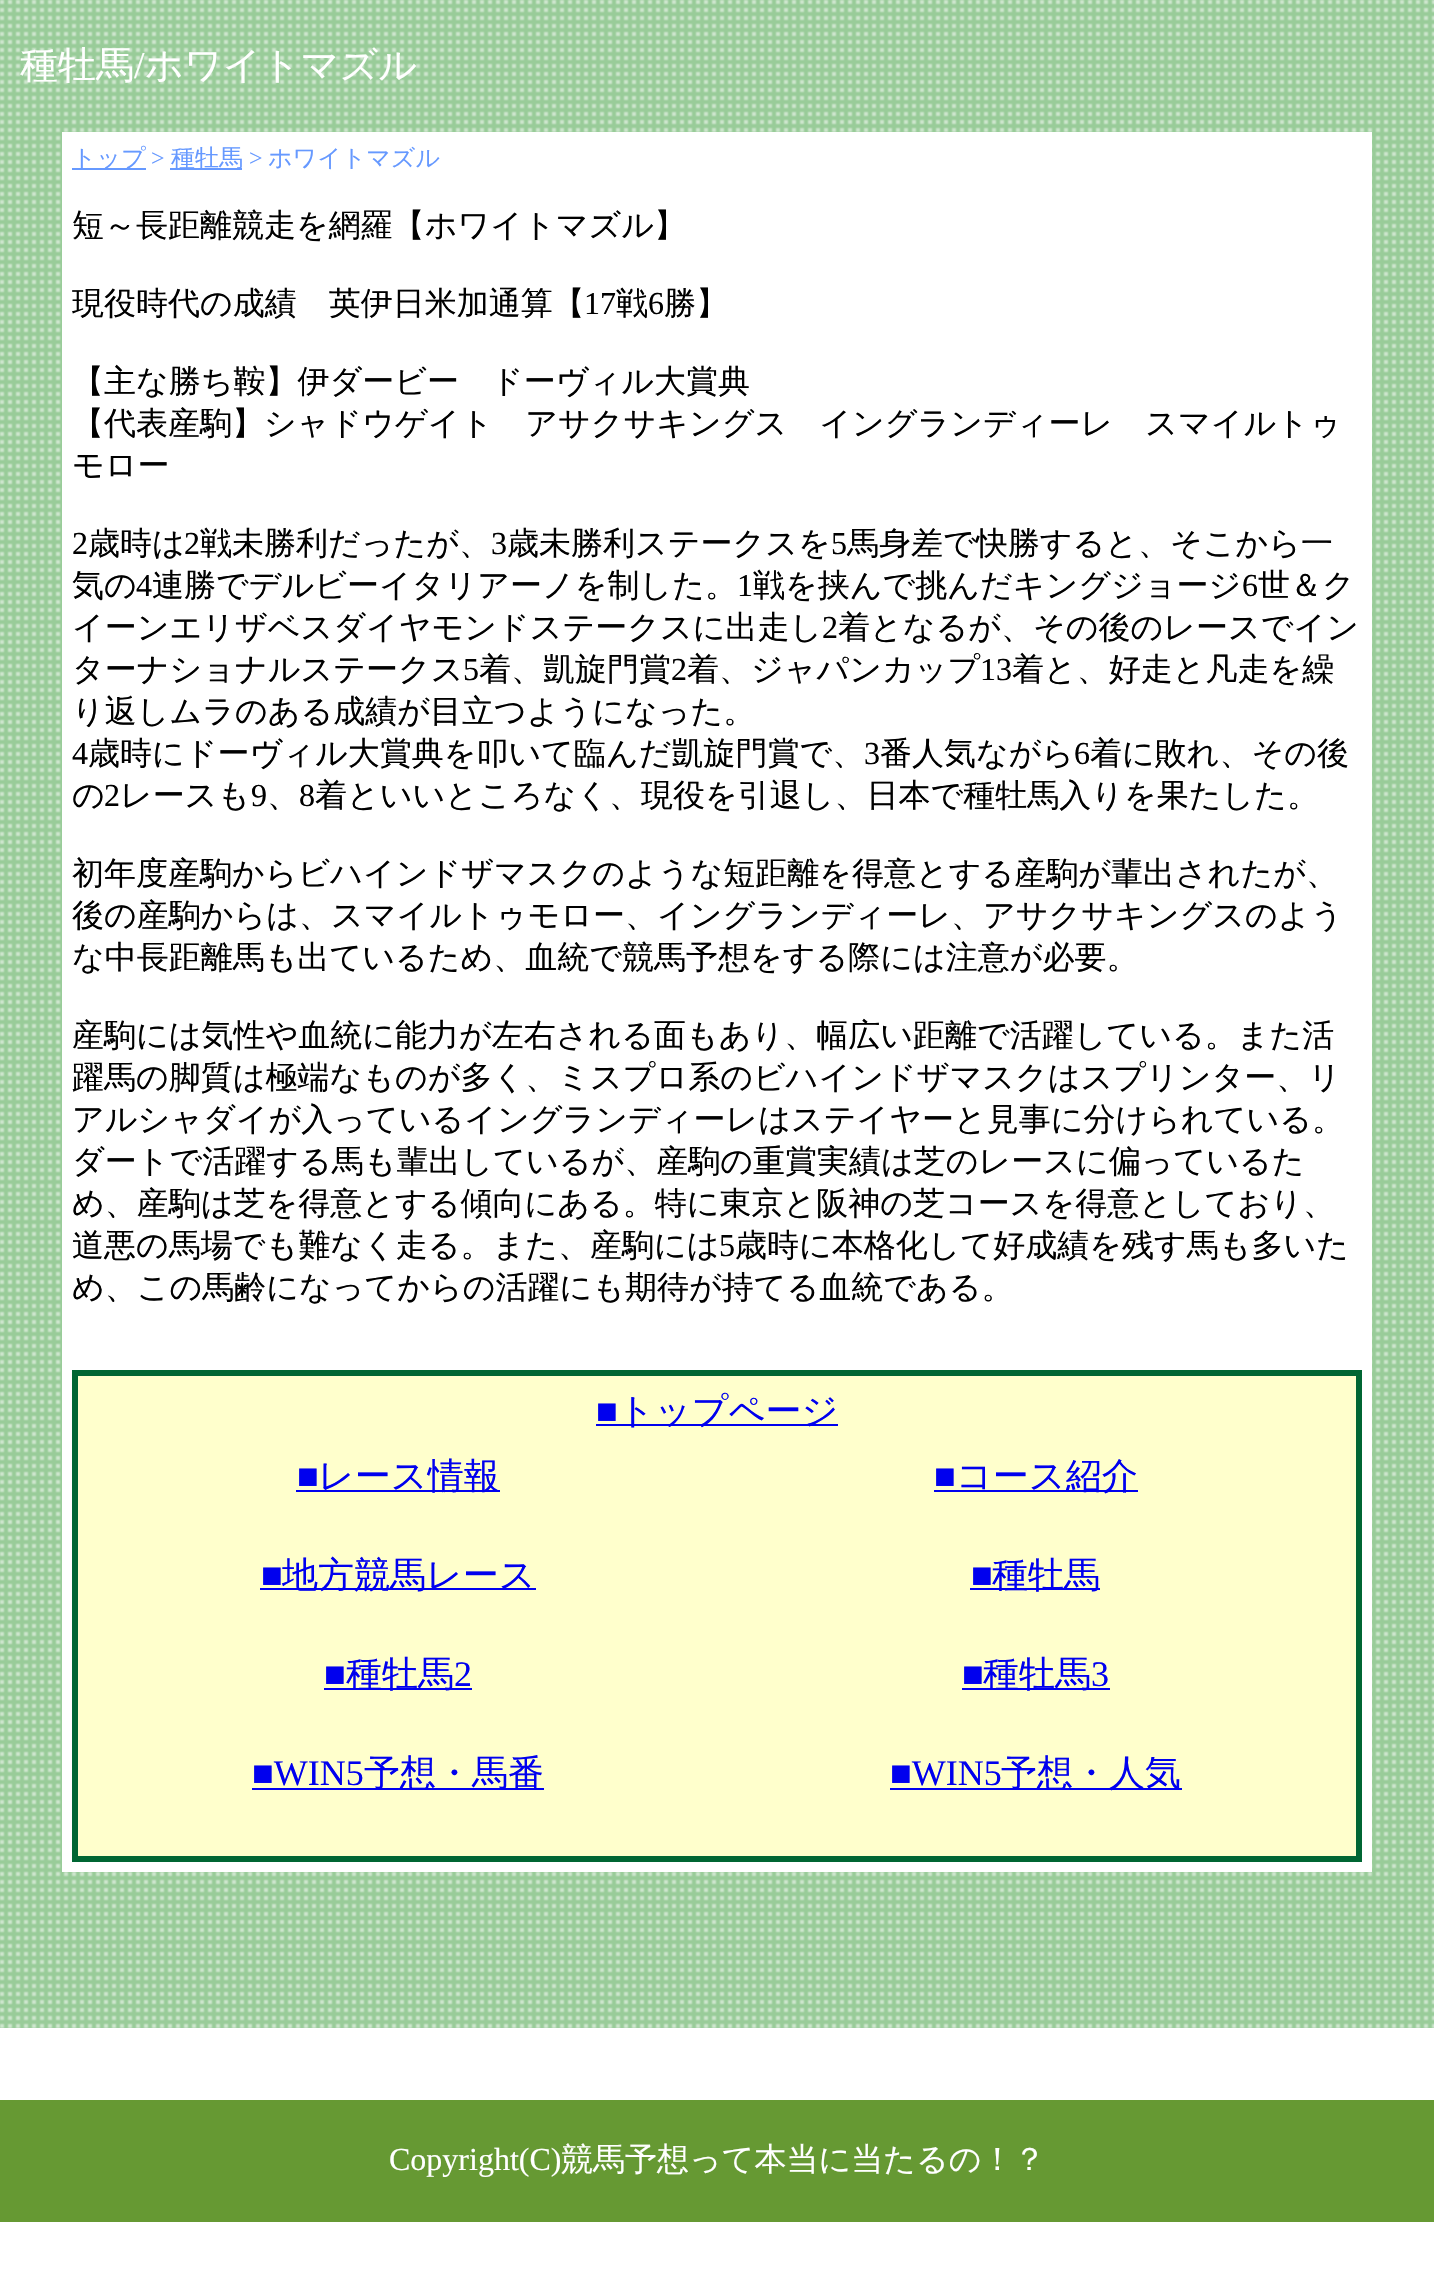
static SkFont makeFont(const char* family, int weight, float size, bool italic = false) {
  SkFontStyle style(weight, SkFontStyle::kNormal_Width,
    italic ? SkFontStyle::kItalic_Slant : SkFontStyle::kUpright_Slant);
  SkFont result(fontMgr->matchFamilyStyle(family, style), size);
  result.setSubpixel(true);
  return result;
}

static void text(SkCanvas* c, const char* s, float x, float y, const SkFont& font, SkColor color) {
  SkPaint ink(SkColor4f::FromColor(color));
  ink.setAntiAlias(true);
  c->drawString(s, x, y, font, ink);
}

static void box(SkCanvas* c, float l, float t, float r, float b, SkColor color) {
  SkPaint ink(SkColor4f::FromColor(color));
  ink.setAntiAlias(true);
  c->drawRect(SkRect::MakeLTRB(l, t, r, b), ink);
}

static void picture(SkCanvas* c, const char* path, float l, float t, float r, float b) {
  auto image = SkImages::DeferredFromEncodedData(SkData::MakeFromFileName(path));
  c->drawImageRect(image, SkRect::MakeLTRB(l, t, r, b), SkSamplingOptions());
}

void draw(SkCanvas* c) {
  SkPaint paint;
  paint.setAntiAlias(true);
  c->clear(0xffffffff);
  picture(c, "img_01.png", 0, 0, 1434, 2028);
  SkFont face1 = makeFont("WenQuanYi Zen Hei", 500, 38);
  text(c, "種牡馬", 20, 78, face1, 0xffffffff);
  SkFont face2 = makeFont("Liberation Serif", 400, 38);
  text(c, "/", 134, 78, face2, 0xffffffff);
  text(c, "ホワイトマズル", 145, 78, face1, 0xffffffff);
  box(c, 62, 132, 1372, 1872, 0xffffffff);
  box(c, 72, 168, 146, 170, 0xff6699ff);
  SkFont face3 = makeFont("WenQuanYi Zen Hei", 500, 24);
  text(c, "トップ", 72, 166, face3, 0xff6699ff);
  SkFont face4 = makeFont("Liberation Serif", 400, 24);
  text(c, ">", 151, 166, face4, 0xff6699ff);
  box(c, 170, 168, 242, 170, 0xff6699ff);
  text(c, "種牡馬", 171, 166, face3, 0xff6699ff);
  text(c, ">", 249, 166, face4, 0xff6699ff);
  text(c, "ホワイトマズル", 268, 166, face3, 0xff6699ff);
  SkFont face5 = makeFont("WenQuanYi Zen Hei", 500, 32);
  text(c, "短～長距離競走を網羅【ホワイトマズル】", 72, 236, face5, 0xff000000);
  text(c, "現役時代の成績　英伊日米加通算【", 72, 314, face5, 0xff000000);
  SkFont face6 = makeFont("Liberation Serif", 400, 32);
  text(c, "17", 584, 314, face6, 0xff000000);
  text(c, "戦", 616, 314, face5, 0xff000000);
  text(c, "6", 648, 314, face6, 0xff000000);
  text(c, "勝】", 664, 314, face5, 0xff000000);
  text(c, "【主な勝ち鞍】伊ダービー　ドーヴィル大賞典", 72, 392, face5, 0xff000000);
  text(c, "【代表産駒】シャドウゲイト　アサクサキングス　イングランディーレ　スマイルトゥ", 72, 434, face5, 0xff000000);
  text(c, "モロー", 72, 476, face5, 0xff000000);
  text(c, "2", 72, 554, face6, 0xff000000);
  text(c, "歳時は", 88, 554, face5, 0xff000000);
  text(c, "2", 184, 554, face6, 0xff000000);
  text(c, "戦未勝利だったが、", 200, 554, face5, 0xff000000);
  text(c, "3", 491, 554, face6, 0xff000000);
  text(c, "歳未勝利ステークスを", 507, 554, face5, 0xff000000);
  text(c, "5", 831, 554, face6, 0xff000000);
  text(c, "馬身差で快勝すると、そこから一", 847, 554, face5, 0xff000000);
  text(c, "気の", 72, 596, face5, 0xff000000);
  text(c, "4", 136, 596, face6, 0xff000000);
  text(c, "連勝でデルビーイタリアーノを制した。", 152, 596, face5, 0xff000000);
  text(c, "1", 737, 596, face6, 0xff000000);
  text(c, "戦を挟んで挑んだキングジョージ", 753, 596, face5, 0xff000000);
  text(c, "6", 1242, 596, face6, 0xff000000);
  text(c, "世＆ク", 1258, 596, face5, 0xff000000);
  text(c, "イーンエリザベスダイヤモンドステークスに出走し", 72, 638, face5, 0xff000000);
  text(c, "2", 822, 638, face6, 0xff000000);
  text(c, "着となるが、その後のレースでイン", 838, 638, face5, 0xff000000);
  text(c, "ターナショナルステークス", 72, 680, face5, 0xff000000);
  text(c, "5", 463, 680, face6, 0xff000000);
  text(c, "着、凱旋門賞", 479, 680, face5, 0xff000000);
  text(c, "2", 671, 680, face6, 0xff000000);
  text(c, "着、ジャパンカップ", 687, 680, face5, 0xff000000);
  text(c, "13", 980, 680, face6, 0xff000000);
  text(c, "着と、好走と凡走を繰", 1012, 680, face5, 0xff000000);
  text(c, "り返しムラのある成績が目立つようになった。", 72, 722, face5, 0xff000000);
  text(c, "4", 72, 764, face6, 0xff000000);
  text(c, "歳時にドーヴィル大賞典を叩いて臨んだ凱旋門賞で、", 88, 764, face5, 0xff000000);
  text(c, "3", 864, 764, face6, 0xff000000);
  text(c, "番人気ながら", 880, 764, face5, 0xff000000);
  text(c, "6", 1074, 764, face6, 0xff000000);
  text(c, "着に敗れ、その後", 1090, 764, face5, 0xff000000);
  text(c, "の", 72, 806, face5, 0xff000000);
  text(c, "2", 104, 806, face6, 0xff000000);
  text(c, "レースも", 120, 806, face5, 0xff000000);
  text(c, "9", 251, 806, face6, 0xff000000);
  text(c, "、", 267, 806, face5, 0xff000000);
  text(c, "8", 299, 806, face6, 0xff000000);
  text(c, "着といいところなく、現役を引退し、日本で種牡馬入りを果たした。", 315, 806, face5, 0xff000000);
  text(c, "初年度産駒からビハインドザマスクのような短距離を得意とする産駒が輩出されたが、", 72, 884, face5, 0xff000000);
  text(c, "後の産駒からは、スマイルトゥモロー、イングランディーレ、アサクサキングスのよう", 72, 926, face5, 0xff000000);
  text(c, "な中長距離馬も出ているため、血統で競馬予想をする際には注意が必要。", 72, 968, face5, 0xff000000);
  text(c, "産駒には気性や血統に能力が左右される面もあり、幅広い距離で活躍している。また活", 72, 1046, face5, 0xff000000);
  text(c, "躍馬の脚質は極端なものが多く、ミスプロ系のビハインドザマスクはスプリンター、リ", 72, 1088, face5, 0xff000000);
  text(c, "アルシャダイが入っているイングランディーレはステイヤーと見事に分けられている。", 72, 1130, face5, 0xff000000);
  text(c, "ダートで活躍する馬も輩出しているが、産駒の重賞実績は芝のレースに偏っているた", 72, 1172, face5, 0xff000000);
  text(c, "め、産駒は芝を得意とする傾向にある。特に東京と阪神の芝コースを得意としており、", 72, 1214, face5, 0xff000000);
  text(c, "道悪の馬場でも難なく走る。また、産駒には", 72, 1256, face5, 0xff000000);
  text(c, "5", 719, 1256, face6, 0xff000000);
  text(c, "歳時に本格化して好成績を残す馬も多いた", 735, 1256, face5, 0xff000000);
  text(c, "め、この馬齢になってからの活躍にも期待が持てる血統である。", 72, 1298, face5, 0xff000000);
  paint.setColor(0xffffffcc);
  c->drawRect(SkRect::MakeLTRB(75, 1373, 1359, 1859), paint);
  paint.setStyle(SkPaint::kStroke_Style);
  paint.setStrokeWidth(6);
  paint.setColor(0xff006633);
  c->drawRect(SkRect::MakeLTRB(75, 1373, 1359, 1859), paint);
  SkFont face7 = makeFont("Liberation Serif", 400, 36);
  text(c, "■", 596, 1423, face7, 0xff0000ee);
  box(c, 596, 1424, 838, 1426, 0xff0000ee);
  SkFont face8 = makeFont("WenQuanYi Zen Hei", 500, 36);
  text(c, "トップページ", 618, 1423, face8, 0xff0000ee);
  text(c, "■", 297, 1488, face7, 0xff0000ee);
  box(c, 296, 1490, 500, 1492, 0xff0000ee);
  text(c, "レース情報", 318, 1488, face8, 0xff0000ee);
  text(c, "■", 261, 1587, face7, 0xff0000ee);
  box(c, 260, 1588, 536, 1590, 0xff0000ee);
  text(c, "地方競馬レース", 282, 1587, face8, 0xff0000ee);
  text(c, "■", 324, 1686, face7, 0xff0000ee);
  box(c, 324, 1688, 472, 1690, 0xff0000ee);
  text(c, "種牡馬", 346, 1686, face8, 0xff0000ee);
  text(c, "2", 454, 1686, face7, 0xff0000ee);
  text(c, "■WIN5", 252, 1785, face7, 0xff0000ee);
  box(c, 252, 1788, 544, 1790, 0xff0000ee);
  text(c, "予想・馬番", 364, 1785, face8, 0xff0000ee);
  text(c, "■", 934, 1488, face7, 0xff0000ee);
  box(c, 934, 1490, 1138, 1492, 0xff0000ee);
  text(c, "コース紹介", 956, 1488, face8, 0xff0000ee);
  text(c, "■", 971, 1587, face7, 0xff0000ee);
  box(c, 970, 1588, 1100, 1590, 0xff0000ee);
  text(c, "種牡馬", 992, 1587, face8, 0xff0000ee);
  text(c, "■", 962, 1686, face7, 0xff0000ee);
  box(c, 962, 1688, 1110, 1690, 0xff0000ee);
  text(c, "種牡馬", 983, 1686, face8, 0xff0000ee);
  text(c, "3", 1091, 1686, face7, 0xff0000ee);
  text(c, "■WIN5", 890, 1785, face7, 0xff0000ee);
  box(c, 890, 1788, 1182, 1790, 0xff0000ee);
  text(c, "予想・人気", 1001, 1785, face8, 0xff0000ee);
  box(c, 0, 2100, 1434, 2222, 0xff669933);
  text(c, "Copyright(C)", 389, 2170, face6, 0xffffffff);
  text(c, "競馬予想って本当に当たるの！？", 561, 2170, face5, 0xffffffff);
}
